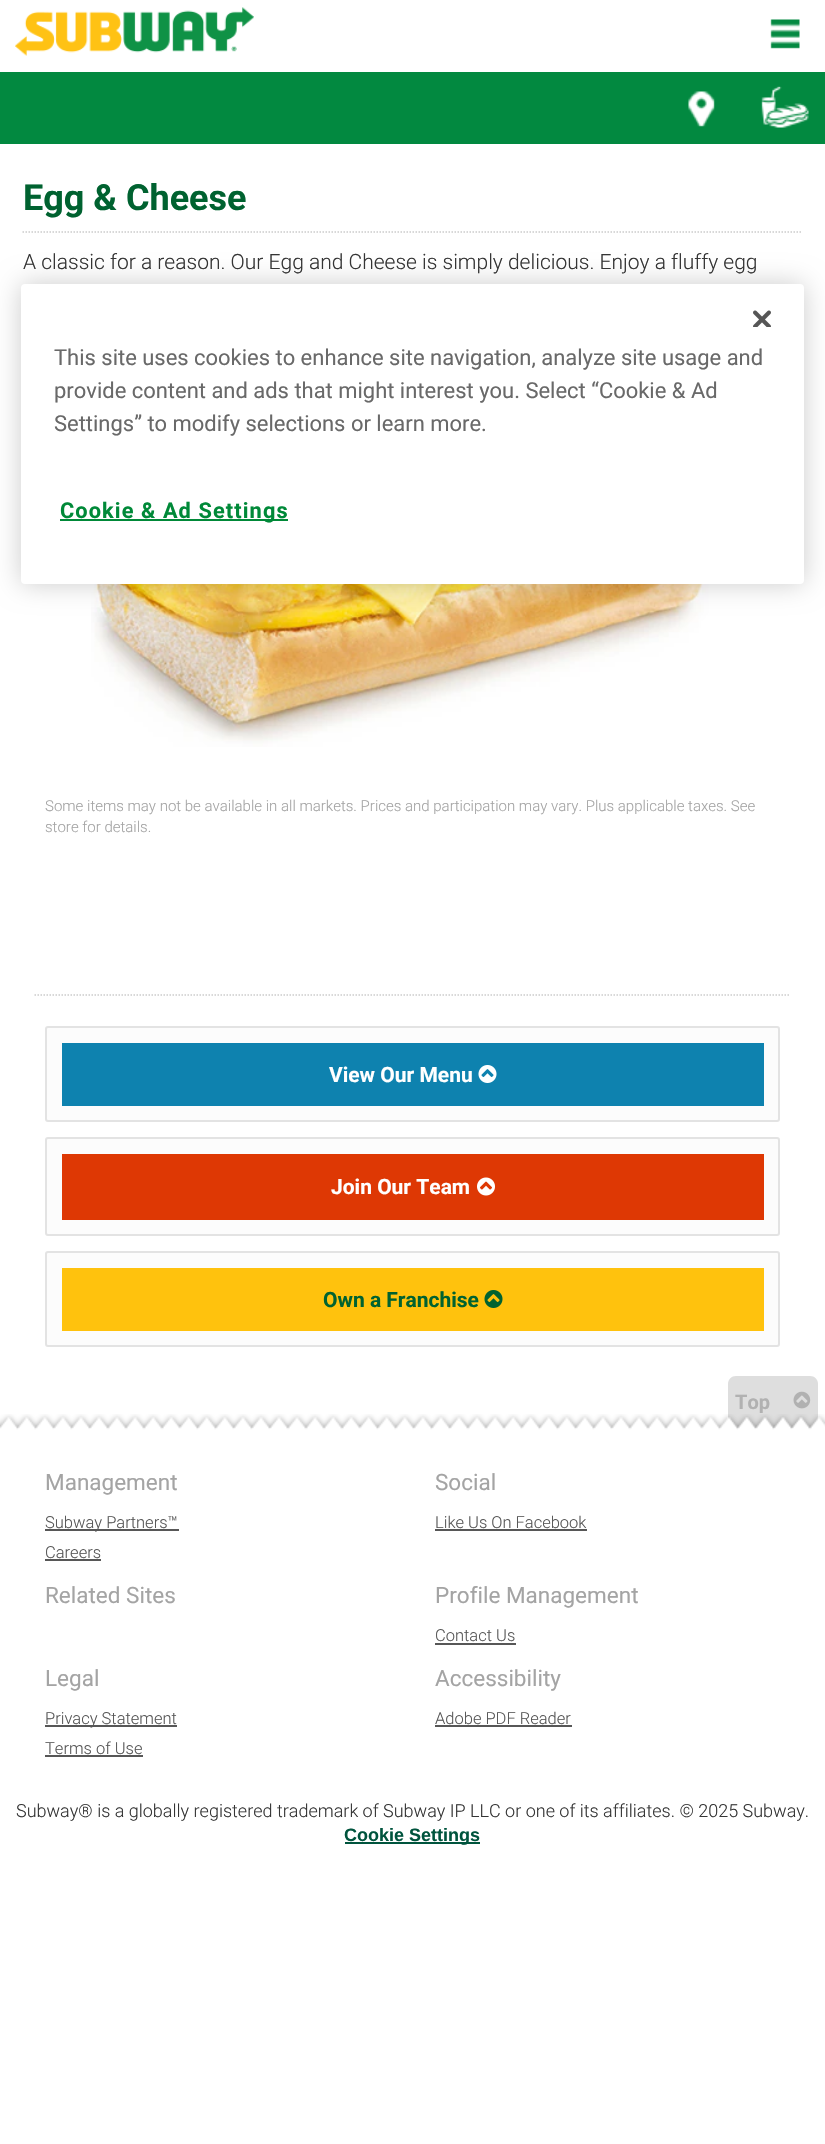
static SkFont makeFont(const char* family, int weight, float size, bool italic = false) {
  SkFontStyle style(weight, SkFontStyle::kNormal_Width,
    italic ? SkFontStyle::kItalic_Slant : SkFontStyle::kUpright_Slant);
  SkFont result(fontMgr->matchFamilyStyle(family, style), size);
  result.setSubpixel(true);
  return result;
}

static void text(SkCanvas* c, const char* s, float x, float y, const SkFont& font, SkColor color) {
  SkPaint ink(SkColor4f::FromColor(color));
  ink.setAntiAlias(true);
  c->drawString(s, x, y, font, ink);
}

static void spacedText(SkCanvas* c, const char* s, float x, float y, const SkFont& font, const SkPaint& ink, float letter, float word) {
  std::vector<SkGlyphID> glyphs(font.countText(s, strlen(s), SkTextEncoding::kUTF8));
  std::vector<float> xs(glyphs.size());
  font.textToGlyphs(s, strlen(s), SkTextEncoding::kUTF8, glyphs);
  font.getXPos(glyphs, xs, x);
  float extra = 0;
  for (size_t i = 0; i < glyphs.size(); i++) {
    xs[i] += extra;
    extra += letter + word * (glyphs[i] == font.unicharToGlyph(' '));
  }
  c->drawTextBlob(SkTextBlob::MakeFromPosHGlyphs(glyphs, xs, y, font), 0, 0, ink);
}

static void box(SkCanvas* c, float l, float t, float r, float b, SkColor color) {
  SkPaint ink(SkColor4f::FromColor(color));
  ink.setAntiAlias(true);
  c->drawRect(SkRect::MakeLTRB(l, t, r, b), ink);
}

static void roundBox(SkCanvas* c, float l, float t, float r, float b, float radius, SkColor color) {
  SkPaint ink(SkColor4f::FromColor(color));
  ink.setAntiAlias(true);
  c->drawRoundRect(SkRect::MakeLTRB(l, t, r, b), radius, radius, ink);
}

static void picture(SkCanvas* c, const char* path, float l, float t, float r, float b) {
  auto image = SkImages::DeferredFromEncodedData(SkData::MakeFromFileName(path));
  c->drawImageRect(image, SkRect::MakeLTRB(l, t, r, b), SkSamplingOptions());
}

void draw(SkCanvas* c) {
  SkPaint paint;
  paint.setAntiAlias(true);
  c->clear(0xffffffff);
  picture(c, "img_01.png", 15, 7, 254, 56);
  picture(c, "img_02.png", 770, 19, 800, 49);
  box(c, 0, 72, 825, 144, 0xff028940);
  picture(c, "img_03.png", 688, 91, 715, 127);
  picture(c, "img_04.png", 761, 86, 809, 128);
  paint.setStyle(SkPaint::kStroke_Style);
  paint.setStrokeWidth(1.5f);
  paint.setColor(0xffcccccc);
  paint.setPathEffect(SkDashPathEffect::Make({{1.5f, 1.5f}}, 0));
  c->drawPath(SkPathBuilder().moveTo(22.5f, 232).lineTo(802.5f, 232).detach(), paint);
  paint.setPathEffect(nullptr);
  SkFont face1 = makeFont("Roboto", 700, 36);
  text(c, "Egg & Cheese", 23, 210, face1, 0xff006230);
  SkFont face2 = makeFont("Roboto", 300, 21);
  text(c, "A classic for a reason. Our Egg and Cheese is simply delicious. Enjoy a fluffy egg", 23, 269, face2, 0xff353535);
  picture(c, "img_05.png", 91, 584, 748, 747);
  SkFont face3 = makeFont("Roboto", 300, 15);
  text(c, "Some items may not be available in all markets. Prices and participation may vary. Plus applicable taxes. See", 45, 811, face3, 0xffa4a4a4);
  text(c, "store for details.", 45, 832, face3, 0xffa4a4a4);
  paint.setPathEffect(SkDashPathEffect::Make({{1.5f, 1.5f}}, 0));
  c->drawPath(SkPathBuilder().moveTo(34.5f, 995).lineTo(790.5f, 995).detach(), paint);
  paint.setPathEffect(nullptr);
  paint.setStyle(SkPaint::kFill_Style);
  paint.setColor(0xfffcfcfc);
  c->drawRoundRect(SkRect::MakeLTRB(46, 1027, 779, 1121), 2, 2, paint);
  paint.setStyle(SkPaint::kStroke_Style);
  paint.setStrokeWidth(2);
  paint.setColor(0xffe3e3e3);
  c->drawRoundRect(SkRect::MakeLTRB(46, 1027, 779, 1121), 2, 2, paint);
  box(c, 62, 1043, 764, 1106, 0xff0e82af);
  SkFont face4 = makeFont("Roboto", 700, 21);
  text(c, "View Our Menu", 329, 1082, face4, 0xffffffff);
  picture(c, "img_06.png", 478, 1065, 497, 1083);
  paint.setStyle(SkPaint::kFill_Style);
  paint.setColor(0xfffcfcfc);
  c->drawRoundRect(SkRect::MakeLTRB(46, 1138, 779, 1235), 2, 2, paint);
  paint.setStyle(SkPaint::kStroke_Style);
  paint.setColor(0xffe3e3e3);
  c->drawRoundRect(SkRect::MakeLTRB(46, 1138, 779, 1235), 2, 2, paint);
  box(c, 62, 1154, 764, 1220, 0xffde3804);
  text(c, "Join Our Team", 331, 1194, face4, 0xffffffff);
  picture(c, "img_07.png", 477, 1177, 495, 1196);
  paint.setStyle(SkPaint::kFill_Style);
  paint.setColor(0xfffcfcfc);
  c->drawRoundRect(SkRect::MakeLTRB(46, 1252, 779, 1346), 2, 2, paint);
  paint.setStyle(SkPaint::kStroke_Style);
  paint.setColor(0xffe3e3e3);
  c->drawRoundRect(SkRect::MakeLTRB(46, 1252, 779, 1346), 2, 2, paint);
  box(c, 62, 1268, 764, 1331, 0xffffc20d);
  text(c, "Own a Franchise", 323, 1307, face4, 0xff006230);
  picture(c, "img_08.png", 484, 1290, 503, 1308);
  paint.setStyle(SkPaint::kFill_Style);
  paint.setColor(0xffdedede);
  c->drawPath(SkPathBuilder().moveTo(736, 1376).lineTo(810, 1376).cubicTo(814.5f, 1376, 818, 1379.5f, 818, 1384).lineTo(818, 1430).lineTo(728, 1430).lineTo(728, 1384).cubicTo(728, 1379.5f, 731.5f, 1376, 736, 1376).close().detach(), paint);
  SkFont face5 = makeFont("Roboto", 700, 20);
  text(c, "Top", 735, 1409, face5, 0xffb1b1b1);
  picture(c, "img_09.png", 793, 1391, 811, 1409);
  picture(c, "img_10.png", 0, 1414, 825, 1430);
  SkFont face6 = makeFont("Roboto", 400, 22.5f);
  text(c, "Management", 45, 1490, face6, 0xffa4a4a4);
  box(c, 45, 1529, 179, 1531, 0xff575757);
  SkFont face7 = makeFont("Roboto", 300, 16.5f);
  text(c, "Subway Partners™", 45, 1528, face7, 0xff575757);
  text(c, "Careers", 45, 1558, face7, 0xff575757);
  box(c, 45, 1559, 101, 1561, 0xff575757);
  text(c, "Social", 435, 1490, face6, 0xffa4a4a4);
  text(c, "Like Us On Facebook", 435, 1528, face7, 0xff575757);
  box(c, 435, 1529, 587, 1531, 0xff575757);
  text(c, "Related Sites", 45, 1603, face6, 0xffa4a4a4);
  text(c, "Profile Management", 435, 1603, face6, 0xffa4a4a4);
  text(c, "Contact Us", 435, 1641, face7, 0xff575757);
  box(c, 435, 1643, 516, 1645, 0xff575757);
  text(c, "Legal", 45, 1686, face6, 0xffa4a4a4);
  box(c, 45, 1725, 177, 1727, 0xff575757);
  text(c, "Privacy Statement", 45, 1724, face7, 0xff575757);
  text(c, "Terms of Use", 45, 1754, face7, 0xff575757);
  box(c, 45, 1755, 143, 1757, 0xff575757);
  text(c, "Accessibility", 435, 1686, face6, 0xffa4a4a4);
  text(c, "Adobe PDF Reader", 435, 1724, face7, 0xff575757);
  box(c, 435, 1725, 572, 1727, 0xff575757);
  SkFont face8 = makeFont("Roboto", 300, 18);
  text(c, "Subway® is a globally registered trademark of Subway IP LLC or one of its affiliates. © 2025 Subway.", 16, 1817, face8, 0xff353535);
  box(c, 345, 1842, 480, 1844, 0xff00543d);
  SkFont face9 = makeFont("Liberation Sans", 700, 18);
  text(c, "Cookie Settings", 344, 1841, face9, 0xff00543d);
  paint.setColor(0x33000000);
  paint.setMaskFilter(SkMaskFilter::MakeBlur(kNormal_SkBlurStyle, 13.5f));
  c->drawRoundRect(SkRect::MakeLTRB(21, 284, 804, 584), 4, 4, paint);
  paint.setMaskFilter(nullptr);
  roundBox(c, 21, 284, 804, 584, 4, 0xffffffff);
  picture(c, "img_11.png", 753, 310, 771, 327);
  SkFont face10 = makeFont("Roboto", 400, 21.95f);
  text(c, "This site uses cookies to enhance site navigation, analyze site usage and", 54, 365, face10, 0xff696969);
  text(c, "provide content and ads that might interest you. Select “Cookie & Ad", 54, 398, face10, 0xff696969);
  text(c, "Settings” to modify selections or learn more.", 54, 431, face10, 0xff696969);
  box(c, 60, 519, 288, 521, 0xff008938);
  SkFont face11 = makeFont("Roboto", 700, 21.75f);
  paint.setColor(0xff008938);
  spacedText(c, "Cookie & Ad Settings", 60, 518, face11, paint, 1.1f, 0);
}
